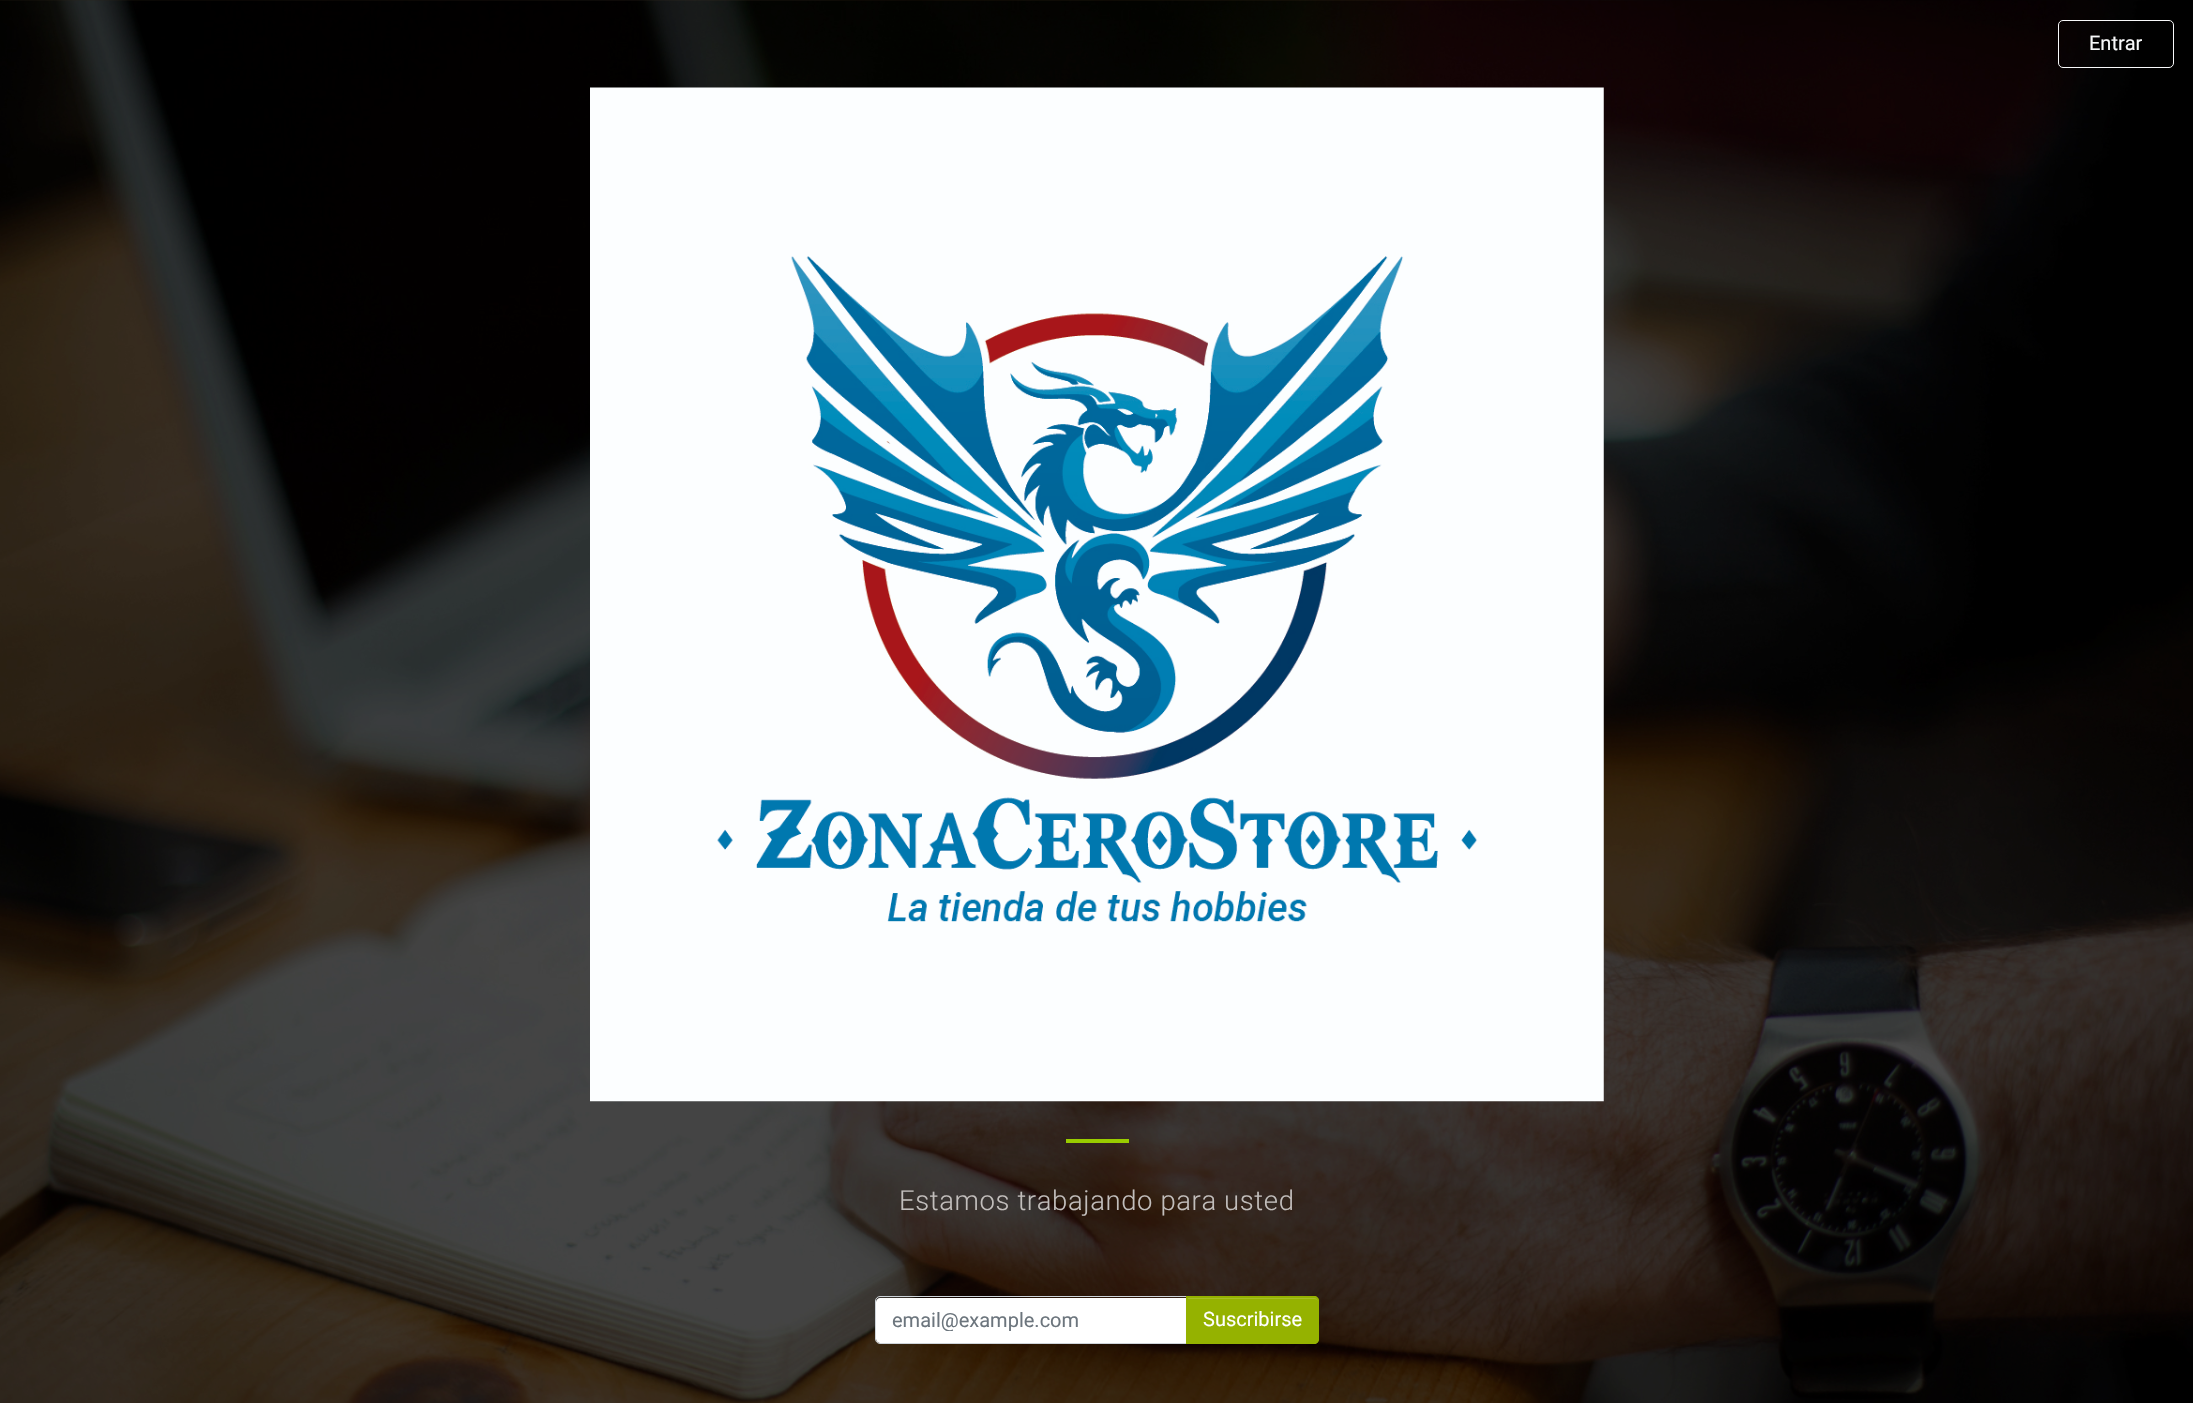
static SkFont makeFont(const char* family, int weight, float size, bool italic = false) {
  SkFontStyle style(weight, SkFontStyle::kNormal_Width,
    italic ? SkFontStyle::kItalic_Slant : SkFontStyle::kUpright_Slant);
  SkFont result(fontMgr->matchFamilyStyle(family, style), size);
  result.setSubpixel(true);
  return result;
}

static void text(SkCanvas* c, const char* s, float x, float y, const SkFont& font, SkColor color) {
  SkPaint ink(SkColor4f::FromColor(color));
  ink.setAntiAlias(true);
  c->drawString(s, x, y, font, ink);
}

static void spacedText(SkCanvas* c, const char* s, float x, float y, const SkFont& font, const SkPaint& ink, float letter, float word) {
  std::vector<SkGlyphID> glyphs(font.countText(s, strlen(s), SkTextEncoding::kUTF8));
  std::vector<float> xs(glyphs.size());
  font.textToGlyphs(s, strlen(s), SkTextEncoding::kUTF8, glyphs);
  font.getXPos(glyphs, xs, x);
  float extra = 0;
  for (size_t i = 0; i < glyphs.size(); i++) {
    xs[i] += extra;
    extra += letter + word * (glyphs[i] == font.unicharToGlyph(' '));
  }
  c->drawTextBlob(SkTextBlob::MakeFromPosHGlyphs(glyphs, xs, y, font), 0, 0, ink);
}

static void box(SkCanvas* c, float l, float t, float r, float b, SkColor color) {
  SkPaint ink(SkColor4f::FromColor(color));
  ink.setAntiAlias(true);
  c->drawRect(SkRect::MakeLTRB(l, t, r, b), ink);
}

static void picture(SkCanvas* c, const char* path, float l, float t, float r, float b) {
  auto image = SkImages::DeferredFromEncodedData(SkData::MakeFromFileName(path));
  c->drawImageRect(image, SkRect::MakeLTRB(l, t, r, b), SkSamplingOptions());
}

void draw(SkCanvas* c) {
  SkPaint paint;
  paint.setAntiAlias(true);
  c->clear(0xffffffff);
  picture(c, "img_01.png", 0, 0, 2193, 1403);
  paint.setStyle(SkPaint::kStroke_Style);
  paint.setStrokeWidth(1);
  paint.setColor(0xfff8f9fa);
  c->drawRoundRect(SkRect::MakeLTRB(2058.5f, 20.5f, 2173.5f, 67.5f), 4.5f, 4.5f, paint);
  SkFont face1 = makeFont("Roboto", 400, 20);
  text(c, "Entrar", 2089, 50, face1, 0xfff8f9fa);
  picture(c, "img_02.png", 590, 87, 1604, 1102);
  box(c, 1066, 1139, 1129, 1143, 0xff99cc00);
  SkFont face2 = makeFont("Roboto", 300, 27.5f);
  paint.setStyle(SkPaint::kFill_Style);
  paint.setColor(0xffc2bebc);
  spacedText(c, "Estamos trabajando para usted", 899, 1210, face2, paint, 0.6f, 0);
  paint.setColor(0xffffffff);
  c->drawPath(SkPathBuilder().moveTo(880, 1298).lineTo(1186, 1298).lineTo(1186, 1343).lineTo(880, 1343).cubicTo(878, 1343, 876, 1341, 876, 1339).lineTo(876, 1302).cubicTo(876, 1300, 878, 1298, 880, 1298).close().detach(), paint);
  paint.setStyle(SkPaint::kStroke_Style);
  paint.setColor(0xffced4da);
  c->drawPath(SkPathBuilder().moveTo(880, 1296.5f).lineTo(1187.5f, 1296.5f).lineTo(1187.5f, 1343.5f).lineTo(880, 1343.5f).cubicTo(877.5f, 1343.5f, 875.5f, 1341.5f, 875.5f, 1339).lineTo(875.5f, 1301).cubicTo(875.5f, 1298.5f, 877.5f, 1296.5f, 880, 1296.5f).close().detach(), paint);
  c->save();
  c->clipRect(SkRect::MakeLTRB(891, 1308, 1171, 1331));
  text(c, "email@example.com", 892, 1327, face1, 0xff6c757d);
  c->restore();
  paint.setStyle(SkPaint::kFill_Style);
  paint.setColor(0x12000000);
  paint.setMaskFilter(SkMaskFilter::MakeBlur(kNormal_SkBlurStyle, 0.5f));
  c->drawRoundRect(SkRect::MakeLTRB(1186, 1298, 1319, 1345), 5, 5, paint);
  paint.setMaskFilter(nullptr);
  paint.setColor(0xff95b200);
  c->drawPath(SkPathBuilder().moveTo(1186, 1296).lineTo(1314, 1296).cubicTo(1317, 1296, 1319, 1298, 1319, 1301).lineTo(1319, 1339).cubicTo(1319, 1342, 1317, 1344, 1314, 1344).lineTo(1186, 1344).close().detach(), paint);
  paint.setColor(0xffa5be26);
  c->drawPath(SkPathBuilder().moveTo(1188, 1299).lineTo(1314, 1299).cubicTo(1316, 1299, 1318, 1300, 1318, 1302).cubicTo(1318, 1300, 1316, 1298, 1314, 1298).lineTo(1188, 1298).close().detach(), paint);
  paint.setStyle(SkPaint::kStroke_Style);
  paint.setColor(0xff95b200);
  c->drawPath(SkPathBuilder().moveTo(1186.5f, 1296.5f).lineTo(1314, 1296.5f).cubicTo(1316.5f, 1296.5f, 1318.5f, 1298.5f, 1318.5f, 1301).lineTo(1318.5f, 1339).cubicTo(1318.5f, 1341.5f, 1316.5f, 1343.5f, 1314, 1343.5f).lineTo(1186.5f, 1343.5f).close().detach(), paint);
  text(c, "Suscribirse", 1203, 1326, face1, 0xffffffff);
}
